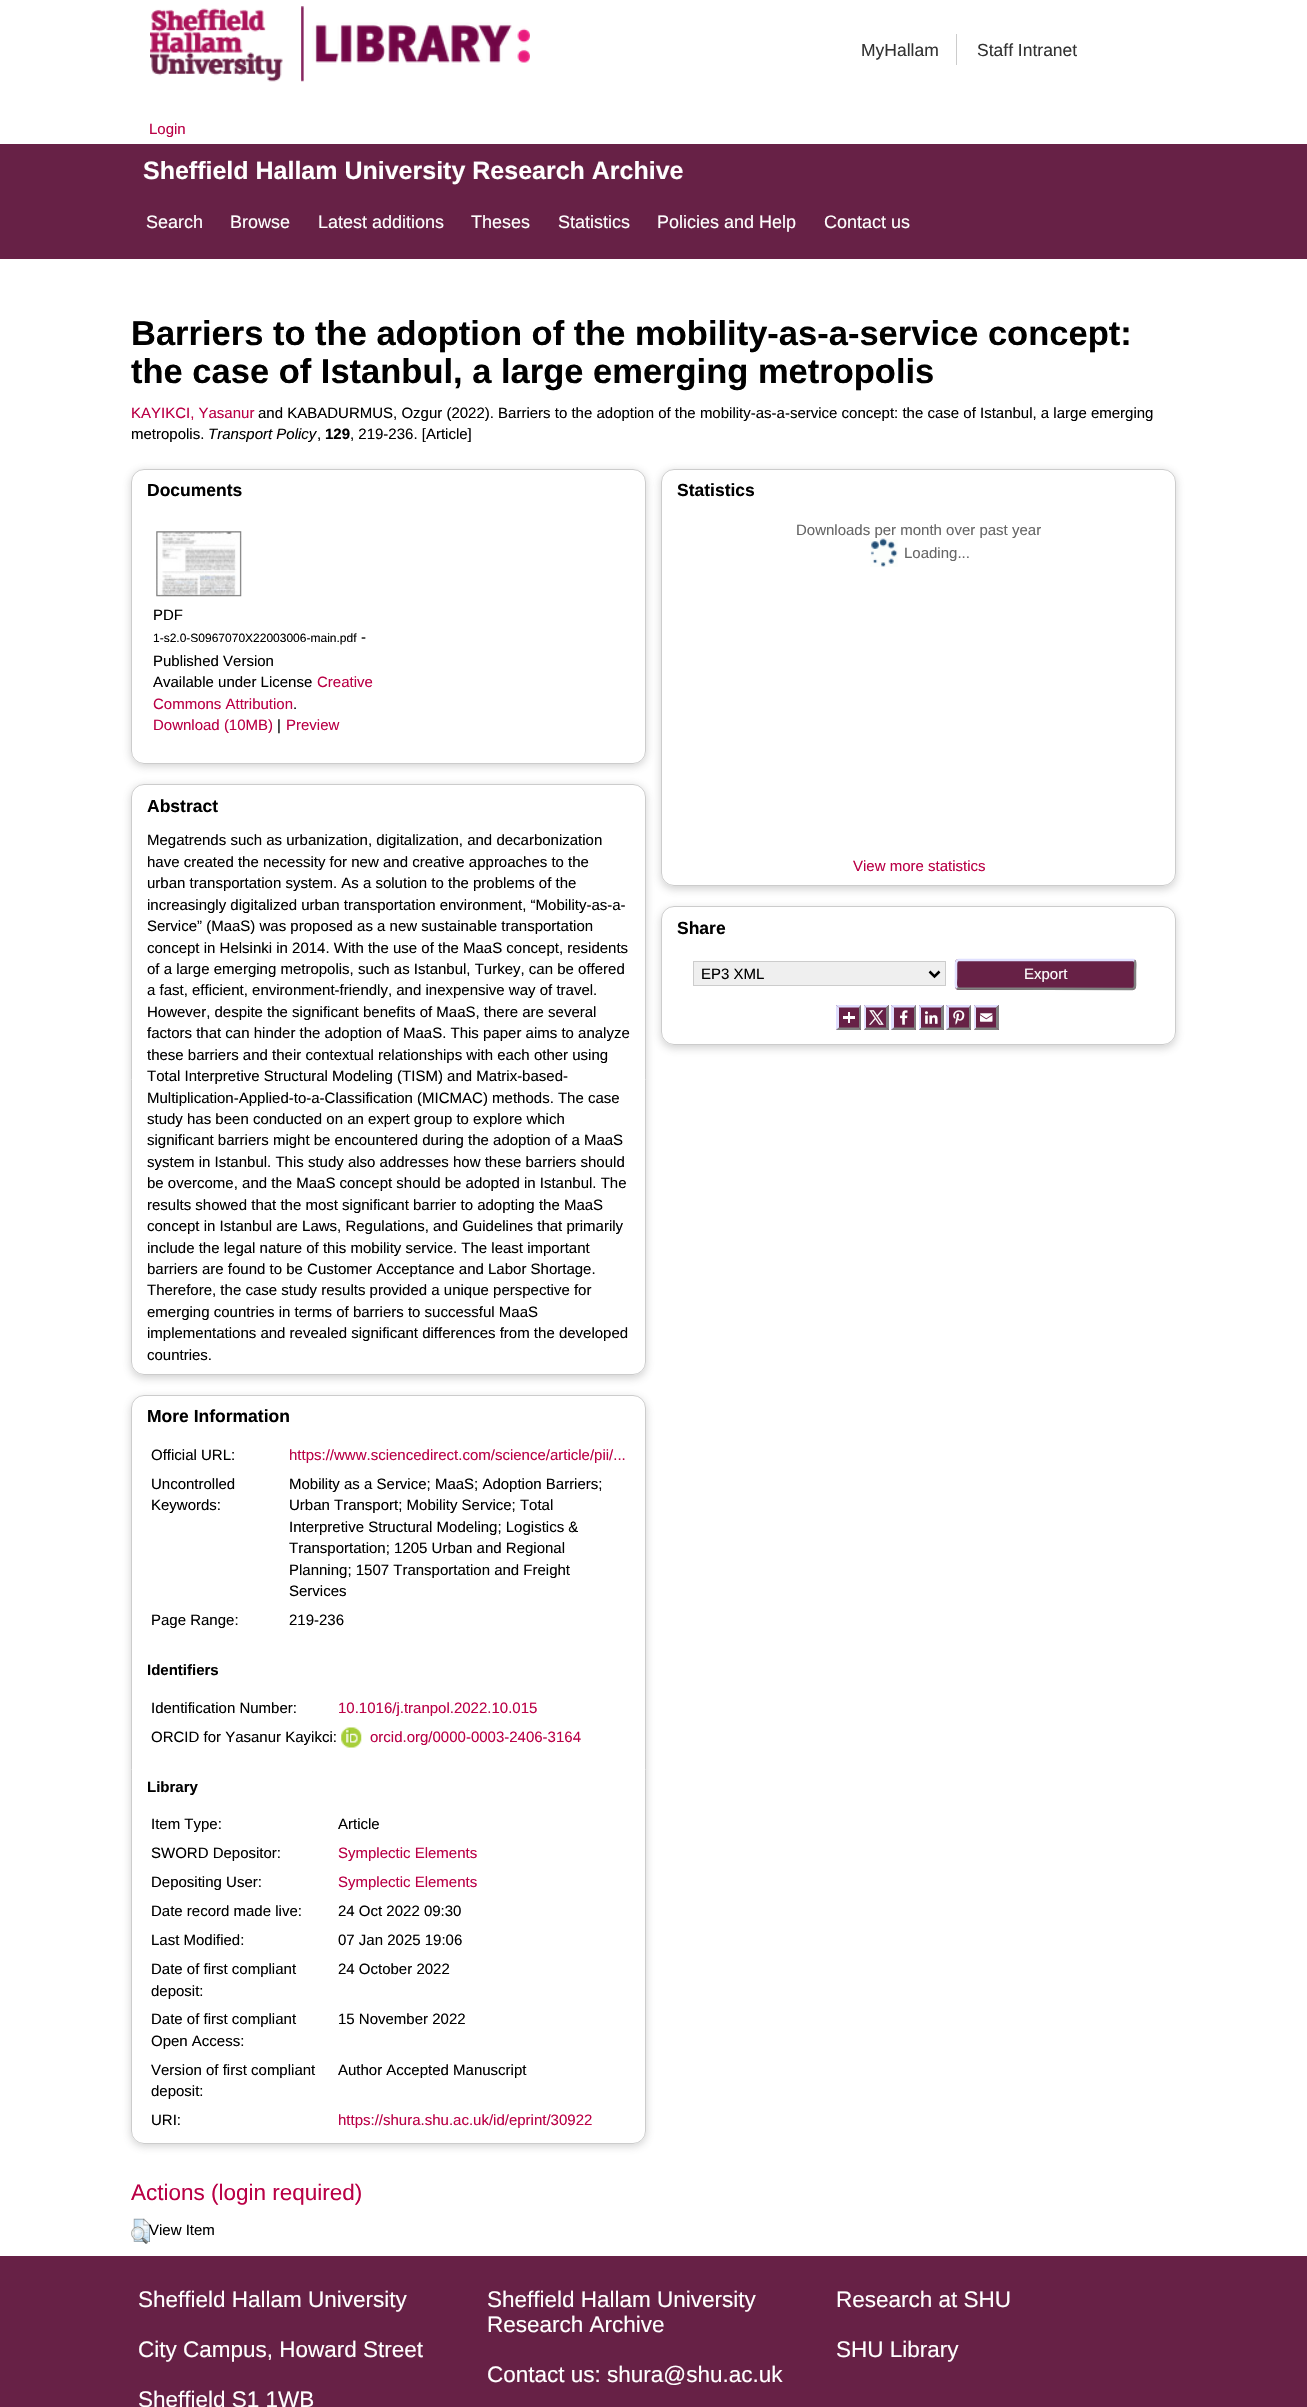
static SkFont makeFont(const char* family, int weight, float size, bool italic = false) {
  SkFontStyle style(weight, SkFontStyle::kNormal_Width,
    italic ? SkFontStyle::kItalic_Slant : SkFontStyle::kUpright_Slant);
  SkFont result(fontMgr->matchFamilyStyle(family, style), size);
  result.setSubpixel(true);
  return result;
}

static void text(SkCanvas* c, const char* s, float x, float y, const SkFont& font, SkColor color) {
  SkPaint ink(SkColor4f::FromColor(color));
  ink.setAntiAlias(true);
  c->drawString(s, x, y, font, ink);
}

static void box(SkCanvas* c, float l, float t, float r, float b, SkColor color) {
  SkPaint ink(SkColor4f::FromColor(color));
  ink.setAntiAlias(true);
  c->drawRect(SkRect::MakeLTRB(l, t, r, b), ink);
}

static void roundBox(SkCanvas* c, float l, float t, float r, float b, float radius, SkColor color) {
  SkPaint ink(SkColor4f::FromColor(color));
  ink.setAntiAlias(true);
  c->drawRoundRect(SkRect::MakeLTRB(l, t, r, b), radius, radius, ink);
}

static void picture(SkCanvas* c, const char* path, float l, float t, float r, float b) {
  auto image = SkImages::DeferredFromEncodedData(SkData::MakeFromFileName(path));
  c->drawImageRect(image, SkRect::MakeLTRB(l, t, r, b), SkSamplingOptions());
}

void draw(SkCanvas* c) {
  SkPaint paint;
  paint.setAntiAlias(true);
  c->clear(0xffffffff);
  picture(c, "img_01.png", 150, 8, 283, 82);
  picture(c, "img_02.png", 301, 6, 530, 82);
  SkFont face1 = makeFont("Liberation Sans", 400, 17.5f);
  text(c, "MyHallam", 861, 56, face1, 0xff333333);
  box(c, 956, 34, 957, 65, 0xffcccccc);
  text(c, "Staff Intranet", 977, 56, face1, 0xff333333);
  SkFont face2 = makeFont("Liberation Sans", 400, 15);
  text(c, "Login", 149, 134, face2, 0xffba0046);
  box(c, 0, 144, 1307, 259, 0xff672146);
  SkFont face3 = makeFont("Liberation Sans", 700, 25);
  text(c, "Sheffield Hallam University Research Archive", 143, 179, face3, 0xffffffff);
  SkFont face4 = makeFont("Liberation Sans", 400, 18);
  text(c, "Search", 146, 228, face4, 0xffffffff);
  text(c, "Browse", 230, 228, face4, 0xffffffff);
  text(c, "Latest additions", 318, 228, face4, 0xffffffff);
  text(c, "Theses", 471, 228, face4, 0xffffffff);
  text(c, "Statistics", 558, 228, face4, 0xffffffff);
  text(c, "Policies and Help", 657, 228, face4, 0xffffffff);
  text(c, "Contact us", 824, 228, face4, 0xffffffff);
  SkFont face5 = makeFont("Liberation Sans", 700, 34.5f);
  text(c, "Barriers to the adoption of the mobility-as-a-service concept:", 131, 345, face5, 0xff000000);
  text(c, "the case of Istanbul, a large emerging metropolis", 131, 383, face5, 0xff000000);
  text(c, "KAYIKCI, Yasanur", 131, 418, face2, 0xffba0046);
  text(c, "and KABADURMUS, Ozgur (2022). Barriers to the adoption of the mobility-as-a-service concept: the case of Istanbul, a large emerging", 258, 418, face2, 0xff000000);
  text(c, "metropolis.", 131, 439, face2, 0xff000000);
  SkFont face6 = makeFont("Liberation Sans", 400, 15, true);
  text(c, "Transport Policy", 208, 439, face6, 0xff000000);
  text(c, ",", 317, 439, face2, 0xff000000);
  SkFont face7 = makeFont("Liberation Sans", 700, 15);
  text(c, "129", 325, 439, face7, 0xff000000);
  text(c, ", 219-236. [Article]", 350, 439, face2, 0xff000000);
  c->save();
  c->clipPath(SkPathBuilder(SkPathFillType::kEvenOdd).moveTo(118, 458).lineTo(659, 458).lineTo(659, 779).lineTo(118, 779).close().moveTo(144, 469).lineTo(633, 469).cubicTo(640, 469, 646, 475, 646, 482).lineTo(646, 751).cubicTo(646, 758, 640, 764, 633, 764).lineTo(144, 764).cubicTo(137, 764, 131, 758, 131, 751).lineTo(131, 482).cubicTo(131, 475, 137, 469, 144, 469).close().detach(), true);
  paint.setColor(0x4d646464);
  paint.setMaskFilter(SkMaskFilter::MakeBlur(kNormal_SkBlurStyle, 4));
  c->drawRoundRect(SkRect::MakeLTRB(131, 471, 646, 766), 13, 13, paint);
  paint.setMaskFilter(nullptr);
  c->restore();
  paint.setStyle(SkPaint::kStroke_Style);
  paint.setStrokeWidth(1);
  paint.setColor(0xffcccccc);
  c->drawRoundRect(SkRect::MakeLTRB(131.5f, 469.5f, 645.5f, 763.5f), 12.5f, 12.5f, paint);
  SkFont face8 = makeFont("Liberation Sans", 700, 17.5f);
  text(c, "Documents", 147, 496, face8, 0xff000000);
  picture(c, "img_03.png", 156, 531, 242, 597);
  text(c, "PDF", 153, 620, face2, 0xff000000);
  SkFont face9 = makeFont("Liberation Sans", 400, 12);
  text(c, "1-s2.0-S0967070X22003006-main.pdf", 153, 642, face9, 0xff000000);
  text(c, "-", 361, 642, face2, 0xff000000);
  text(c, "Published Version", 153, 666, face2, 0xff000000);
  text(c, "Available under License", 153, 687, face2, 0xff000000);
  text(c, "Creative", 317, 687, face2, 0xffba0046);
  text(c, "Commons Attribution", 153, 709, face2, 0xffba0046);
  text(c, ".", 293, 709, face2, 0xff000000);
  text(c, "Download (10MB)", 153, 730, face2, 0xffba0046);
  text(c, "|", 277, 730, face2, 0xff000000);
  text(c, "Preview", 286, 730, face2, 0xffba0046);
  c->save();
  c->clipPath(SkPathBuilder(SkPathFillType::kEvenOdd).moveTo(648, 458).lineTo(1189, 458).lineTo(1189, 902).lineTo(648, 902).close().moveTo(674, 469).lineTo(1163, 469).cubicTo(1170, 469, 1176, 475, 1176, 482).lineTo(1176, 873).cubicTo(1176, 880, 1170, 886, 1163, 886).lineTo(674, 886).cubicTo(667, 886, 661, 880, 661, 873).lineTo(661, 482).cubicTo(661, 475, 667, 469, 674, 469).close().detach(), true);
  paint.setStyle(SkPaint::kFill_Style);
  paint.setColor(0x4d646464);
  paint.setMaskFilter(SkMaskFilter::MakeBlur(kNormal_SkBlurStyle, 4));
  c->drawRoundRect(SkRect::MakeLTRB(661, 471, 1176, 889), 13, 13, paint);
  paint.setMaskFilter(nullptr);
  c->restore();
  paint.setStyle(SkPaint::kStroke_Style);
  paint.setColor(0xffcccccc);
  c->drawRoundRect(SkRect::MakeLTRB(661.5f, 469.5f, 1175.5f, 885.5f), 12.5f, 12.5f, paint);
  text(c, "Statistics", 677, 496, face8, 0xff000000);
  text(c, "Downloads per month over past year", 796, 535, face2, 0xff666666);
  picture(c, "img_04.png", 870, 538, 898, 567);
  text(c, "Loading...", 904, 558, face2, 0xff666666);
  text(c, "View more statistics", 853, 871, face2, 0xffba0046);
  c->save();
  c->clipPath(SkPathBuilder(SkPathFillType::kEvenOdd).moveTo(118, 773).lineTo(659, 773).lineTo(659, 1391).lineTo(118, 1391).close().moveTo(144, 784).lineTo(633, 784).cubicTo(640, 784, 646, 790, 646, 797).lineTo(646, 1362).cubicTo(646, 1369, 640, 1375, 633, 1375).lineTo(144, 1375).cubicTo(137, 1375, 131, 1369, 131, 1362).lineTo(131, 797).cubicTo(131, 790, 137, 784, 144, 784).close().detach(), true);
  paint.setStyle(SkPaint::kFill_Style);
  paint.setColor(0x4d646464);
  paint.setMaskFilter(SkMaskFilter::MakeBlur(kNormal_SkBlurStyle, 4));
  c->drawRoundRect(SkRect::MakeLTRB(131, 786, 646, 1378), 13, 13, paint);
  paint.setMaskFilter(nullptr);
  c->restore();
  paint.setStyle(SkPaint::kStroke_Style);
  paint.setColor(0xffcccccc);
  c->drawRoundRect(SkRect::MakeLTRB(131.5f, 784.5f, 645.5f, 1374.5f), 12.5f, 12.5f, paint);
  text(c, "Abstract", 147, 812, face8, 0xff000000);
  text(c, "Megatrends such as urbanization, digitalization, and decarbonization", 147, 845, face2, 0xff000000);
  text(c, "have created the necessity for new and creative approaches to the", 147, 867, face2, 0xff000000);
  text(c, "urban transportation system. As a solution to the problems of the", 147, 888, face2, 0xff000000);
  text(c, "increasingly digitalized urban transportation environment, “Mobility-as-a-", 147, 910, face2, 0xff000000);
  text(c, "Service” (MaaS) was proposed as a new sustainable transportation", 147, 931, face2, 0xff000000);
  text(c, "concept in Helsinki in 2014. With the use of the MaaS concept, residents", 147, 953, face2, 0xff000000);
  text(c, "of a large emerging metropolis, such as Istanbul, Turkey, can be offered", 147, 974, face2, 0xff000000);
  text(c, "a fast, efficient, environment-friendly, and inexpensive way of travel.", 147, 995, face2, 0xff000000);
  text(c, "However, despite the significant benefits of MaaS, there are several", 147, 1017, face2, 0xff000000);
  text(c, "factors that can hinder the adoption of MaaS. This paper aims to analyze", 147, 1038, face2, 0xff000000);
  text(c, "these barriers and their contextual relationships with each other using", 147, 1060, face2, 0xff000000);
  text(c, "Total Interpretive Structural Modeling (TISM) and Matrix-based-", 147, 1081, face2, 0xff000000);
  text(c, "Multiplication-Applied-to-a-Classification (MICMAC) methods. The case", 147, 1103, face2, 0xff000000);
  text(c, "study has been conducted on an expert group to explore which", 147, 1124, face2, 0xff000000);
  text(c, "significant barriers might be encountered during the adoption of a MaaS", 147, 1145, face2, 0xff000000);
  text(c, "system in Istanbul. This study also addresses how these barriers should", 147, 1167, face2, 0xff000000);
  text(c, "be overcome, and the MaaS concept should be adopted in Istanbul. The", 147, 1188, face2, 0xff000000);
  text(c, "results showed that the most significant barrier to adopting the MaaS", 147, 1210, face2, 0xff000000);
  text(c, "concept in Istanbul are Laws, Regulations, and Guidelines that primarily", 147, 1231, face2, 0xff000000);
  text(c, "include the legal nature of this mobility service. The least important", 147, 1253, face2, 0xff000000);
  text(c, "barriers are found to be Customer Acceptance and Labor Shortage.", 147, 1274, face2, 0xff000000);
  text(c, "Therefore, the case study results provided a unique perspective for", 147, 1295, face2, 0xff000000);
  text(c, "emerging countries in terms of barriers to successful MaaS", 147, 1317, face2, 0xff000000);
  text(c, "implementations and revealed significant differences from the developed", 147, 1338, face2, 0xff000000);
  text(c, "countries.", 147, 1360, face2, 0xff000000);
  c->save();
  c->clipPath(SkPathBuilder(SkPathFillType::kEvenOdd).moveTo(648, 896).lineTo(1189, 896).lineTo(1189, 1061).lineTo(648, 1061).close().moveTo(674, 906).lineTo(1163, 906).cubicTo(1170, 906, 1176, 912, 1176, 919).lineTo(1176, 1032).cubicTo(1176, 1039, 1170, 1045, 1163, 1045).lineTo(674, 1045).cubicTo(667, 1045, 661, 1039, 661, 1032).lineTo(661, 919).cubicTo(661, 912, 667, 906, 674, 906).close().detach(), true);
  paint.setStyle(SkPaint::kFill_Style);
  paint.setColor(0x4d646464);
  paint.setMaskFilter(SkMaskFilter::MakeBlur(kNormal_SkBlurStyle, 4));
  c->drawRoundRect(SkRect::MakeLTRB(661, 909, 1176, 1048), 13, 13, paint);
  paint.setMaskFilter(nullptr);
  c->restore();
  paint.setStyle(SkPaint::kStroke_Style);
  paint.setColor(0xffcccccc);
  c->drawRoundRect(SkRect::MakeLTRB(661.5f, 906.5f, 1175.5f, 1044.5f), 12.5f, 12.5f, paint);
  text(c, "Share", 677, 934, face8, 0xff000000);
  paint.setStyle(SkPaint::kFill_Style);
  paint.setColor(0xffefefef);
  c->drawRect(SkRect::MakeLTRB(693.5f, 961.5f, 945.5f, 985.5f), paint);
  paint.setStyle(SkPaint::kStroke_Style);
  paint.setColor(0xffcccccc);
  c->drawRect(SkRect::MakeLTRB(693.5f, 961.5f, 945.5f, 985.5f), paint);
  paint.setStrokeWidth(2.5f);
  paint.setColor(0xff000000);
  c->drawPath(SkPathBuilder().moveTo(929.5f, 971.5f).lineTo(934.5f, 976.5f).lineTo(939.5f, 971.5f).detach(), paint);
  text(c, "EP3 XML", 701, 979, face2, 0xff000000);
  roundBox(c, 955, 959, 1136, 990, 4, 0xff672146);
  paint.setColor(0xff808080);
  c->drawPath(SkPathBuilder().moveTo(1134.5f, 960.5f).cubicTo(1136, 962.5f, 1135, 968, 1135, 970.5f).lineTo(1135, 982.5f).cubicTo(1135, 984, 1136, 988.5f, 1132.5f, 989).lineTo(958.5f, 988.5f).lineTo(957, 988).detach(), paint);
  paint.setColor(0xffe0e0ff);
  c->drawPath(SkPathBuilder().moveTo(957, 988).cubicTo(955, 986, 956, 980.5f, 956, 978.5f).lineTo(956, 966.5f).cubicTo(956, 964.5f, 955.5f, 960, 959, 960).lineTo(1133, 960).lineTo(1134.5f, 960.5f).detach(), paint);
  text(c, "Export", 1024, 979, face2, 0xffffffff);
  box(c, 836, 1005, 861, 1030, 0xff672146);
  paint.setStyle(SkPaint::kFill_Style);
  c->drawPath(SkPathBuilder().moveTo(836, 1005).lineTo(861, 1005).lineTo(859, 1007.5f).lineTo(839, 1007.5f).close().detach(), paint);
  paint.setColor(0xff808080);
  c->drawPath(SkPathBuilder().moveTo(861, 1005).lineTo(861, 1030).lineTo(859, 1027.5f).lineTo(859, 1007.5f).close().detach(), paint);
  c->drawPath(SkPathBuilder().moveTo(861, 1030).lineTo(836, 1030).lineTo(839, 1027.5f).lineTo(859, 1027.5f).close().detach(), paint);
  paint.setColor(0xffe0e0ff);
  c->drawPath(SkPathBuilder().moveTo(836, 1030).lineTo(836, 1005).lineTo(839, 1007.5f).lineTo(839, 1027.5f).close().detach(), paint);
  box(c, 864, 1005, 889, 1030, 0xff672146);
  c->drawPath(SkPathBuilder().moveTo(864, 1005).lineTo(889, 1005).lineTo(886, 1007.5f).lineTo(866, 1007.5f).close().detach(), paint);
  paint.setColor(0xff808080);
  c->drawPath(SkPathBuilder().moveTo(889, 1005).lineTo(889, 1030).lineTo(886, 1027.5f).lineTo(886, 1007.5f).close().detach(), paint);
  c->drawPath(SkPathBuilder().moveTo(889, 1030).lineTo(864, 1030).lineTo(866, 1027.5f).lineTo(886, 1027.5f).close().detach(), paint);
  paint.setColor(0xffe0e0ff);
  c->drawPath(SkPathBuilder().moveTo(864, 1030).lineTo(864, 1005).lineTo(866, 1007.5f).lineTo(866, 1027.5f).close().detach(), paint);
  box(c, 891, 1005, 916, 1030, 0xff672146);
  c->drawPath(SkPathBuilder().moveTo(891, 1005).lineTo(916, 1005).lineTo(914, 1007.5f).lineTo(894, 1007.5f).close().detach(), paint);
  paint.setColor(0xff808080);
  c->drawPath(SkPathBuilder().moveTo(916, 1005).lineTo(916, 1030).lineTo(914, 1027.5f).lineTo(914, 1007.5f).close().detach(), paint);
  c->drawPath(SkPathBuilder().moveTo(916, 1030).lineTo(891, 1030).lineTo(894, 1027.5f).lineTo(914, 1027.5f).close().detach(), paint);
  paint.setColor(0xffe0e0ff);
  c->drawPath(SkPathBuilder().moveTo(891, 1030).lineTo(891, 1005).lineTo(894, 1007.5f).lineTo(894, 1027.5f).close().detach(), paint);
  box(c, 919, 1005, 944, 1030, 0xff672146);
  c->drawPath(SkPathBuilder().moveTo(919, 1005).lineTo(944, 1005).lineTo(941, 1007.5f).lineTo(921, 1007.5f).close().detach(), paint);
  paint.setColor(0xff808080);
  c->drawPath(SkPathBuilder().moveTo(944, 1005).lineTo(944, 1030).lineTo(941, 1027.5f).lineTo(941, 1007.5f).close().detach(), paint);
  c->drawPath(SkPathBuilder().moveTo(944, 1030).lineTo(919, 1030).lineTo(921, 1027.5f).lineTo(941, 1027.5f).close().detach(), paint);
  paint.setColor(0xffe0e0ff);
  c->drawPath(SkPathBuilder().moveTo(919, 1030).lineTo(919, 1005).lineTo(921, 1007.5f).lineTo(921, 1027.5f).close().detach(), paint);
  box(c, 946, 1005, 971, 1030, 0xff672146);
  c->drawPath(SkPathBuilder().moveTo(946, 1005).lineTo(971, 1005).lineTo(969, 1007.5f).lineTo(949, 1007.5f).close().detach(), paint);
  paint.setColor(0xff808080);
  c->drawPath(SkPathBuilder().moveTo(971, 1005).lineTo(971, 1030).lineTo(969, 1027.5f).lineTo(969, 1007.5f).close().detach(), paint);
  c->drawPath(SkPathBuilder().moveTo(971, 1030).lineTo(946, 1030).lineTo(949, 1027.5f).lineTo(969, 1027.5f).close().detach(), paint);
  paint.setColor(0xffe0e0ff);
  c->drawPath(SkPathBuilder().moveTo(946, 1030).lineTo(946, 1005).lineTo(949, 1007.5f).lineTo(949, 1027.5f).close().detach(), paint);
  box(c, 974, 1005, 999, 1030, 0xff672146);
  c->drawPath(SkPathBuilder().moveTo(974, 1005).lineTo(999, 1005).lineTo(996, 1007.5f).lineTo(976, 1007.5f).close().detach(), paint);
  box(c, 848, 1012, 850, 1023, 0xffffffff);
  picture(c, "img_05.png", 869, 1010, 884, 1025);
  picture(c, "img_06.png", 900, 1010, 908, 1025);
  picture(c, "img_07.png", 924, 1011, 938, 1024);
  picture(c, "img_08.png", 953, 1010, 965, 1025);
  paint.setColor(0xff808080);
  c->drawPath(SkPathBuilder().moveTo(999, 1005).lineTo(999, 1030).lineTo(996, 1027.5f).lineTo(996, 1007.5f).close().detach(), paint);
  c->drawPath(SkPathBuilder().moveTo(999, 1030).lineTo(974, 1030).lineTo(976, 1027.5f).lineTo(996, 1027.5f).close().detach(), paint);
  paint.setColor(0xffe0e0ff);
  c->drawPath(SkPathBuilder().moveTo(974, 1030).lineTo(974, 1005).lineTo(976, 1007.5f).lineTo(976, 1027.5f).close().detach(), paint);
  picture(c, "img_09.png", 980, 1013, 993, 1022);
  box(c, 843, 1016, 855, 1019, 0xffffffff);
  c->save();
  c->clipPath(SkPathBuilder(SkPathFillType::kEvenOdd).moveTo(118, 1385).lineTo(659, 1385).lineTo(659, 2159).lineTo(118, 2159).close().moveTo(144, 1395).lineTo(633, 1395).cubicTo(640, 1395, 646, 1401, 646, 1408).lineTo(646, 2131).cubicTo(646, 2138, 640, 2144, 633, 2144).lineTo(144, 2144).cubicTo(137, 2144, 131, 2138, 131, 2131).lineTo(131, 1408).cubicTo(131, 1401, 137, 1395, 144, 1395).close().detach(), true);
  paint.setColor(0x4d646464);
  paint.setMaskFilter(SkMaskFilter::MakeBlur(kNormal_SkBlurStyle, 4));
  c->drawRoundRect(SkRect::MakeLTRB(131, 1398, 646, 2146), 13, 13, paint);
  paint.setMaskFilter(nullptr);
  c->restore();
  paint.setStyle(SkPaint::kStroke_Style);
  paint.setStrokeWidth(1);
  paint.setColor(0xffcccccc);
  c->drawRoundRect(SkRect::MakeLTRB(131.5f, 1395.5f, 645.5f, 2143.5f), 12.5f, 12.5f, paint);
  text(c, "More Information", 147, 1422, face8, 0xff000000);
  text(c, "Official URL:", 151, 1460, face2, 0xff000000);
  text(c, "https://www.sciencedirect.com/science/article/pii/...", 289, 1460, face2, 0xffba0046);
  text(c, "Uncontrolled", 151, 1489, face2, 0xff000000);
  text(c, "Keywords:", 151, 1510, face2, 0xff000000);
  text(c, "Mobility as a Service; MaaS; Adoption Barriers;", 289, 1489, face2, 0xff000000);
  text(c, "Urban Transport; Mobility Service; Total", 289, 1510, face2, 0xff000000);
  text(c, "Interpretive Structural Modeling; Logistics &", 289, 1532, face2, 0xff000000);
  text(c, "Transportation; 1205 Urban and Regional", 289, 1553, face2, 0xff000000);
  text(c, "Planning; 1507 Transportation and Freight", 289, 1575, face2, 0xff000000);
  text(c, "Services", 289, 1596, face2, 0xff000000);
  text(c, "Page Range:", 151, 1625, face2, 0xff000000);
  text(c, "219-236", 289, 1625, face2, 0xff000000);
  text(c, "Identifiers", 147, 1675, face7, 0xff000000);
  text(c, "Identification Number:", 151, 1713, face2, 0xff000000);
  text(c, "10.1016/j.tranpol.2022.10.015", 338, 1713, face2, 0xffba0046);
  text(c, "ORCID for Yasanur Kayikci:", 151, 1742, face2, 0xff000000);
  picture(c, "img_10.png", 341, 1727, 362, 1748);
  text(c, "orcid.org/0000-0003-2406-3164", 370, 1742, face2, 0xffba0046);
  text(c, "Library", 147, 1792, face7, 0xff000000);
  text(c, "Item Type:", 151, 1829, face2, 0xff000000);
  text(c, "Article", 338, 1829, face2, 0xff000000);
  text(c, "SWORD Depositor:", 151, 1858, face2, 0xff000000);
  text(c, "Symplectic Elements", 338, 1858, face2, 0xffba0046);
  text(c, "Depositing User:", 151, 1887, face2, 0xff000000);
  text(c, "Symplectic Elements", 338, 1887, face2, 0xffba0046);
  text(c, "Date record made live:", 151, 1916, face2, 0xff000000);
  text(c, "24 Oct 2022 09:30", 338, 1916, face2, 0xff000000);
  text(c, "Last Modified:", 151, 1945, face2, 0xff000000);
  text(c, "07 Jan 2025 19:06", 338, 1945, face2, 0xff000000);
  text(c, "Date of first compliant", 151, 1974, face2, 0xff000000);
  text(c, "deposit:", 151, 1996, face2, 0xff000000);
  text(c, "24 October 2022", 338, 1974, face2, 0xff000000);
  text(c, "Date of first compliant", 151, 2024, face2, 0xff000000);
  text(c, "Open Access:", 151, 2046, face2, 0xff000000);
  text(c, "15 November 2022", 338, 2024, face2, 0xff000000);
  text(c, "Version of first compliant", 151, 2075, face2, 0xff000000);
  text(c, "deposit:", 151, 2096, face2, 0xff000000);
  text(c, "Author Accepted Manuscript", 338, 2075, face2, 0xff000000);
  text(c, "URI:", 151, 2125, face2, 0xff000000);
  text(c, "https://shura.shu.ac.uk/id/eprint/30922", 338, 2125, face2, 0xffba0046);
  SkFont face10 = makeFont("Liberation Sans", 400, 22.5f);
  text(c, "Actions (login required)", 131, 2200, face10, 0xffba0046);
  picture(c, "img_11.png", 131, 2218, 150, 2244);
  text(c, "View Item", 149, 2235, face2, 0xff000000);
  box(c, 0, 2256, 1307, 2407, 0xff672146);
  text(c, "Sheffield Hallam University", 138, 2307, face10, 0xffffffff);
  text(c, "City Campus, Howard Street", 138, 2357, face10, 0xffffffff);
  text(c, "Sheffield S1 1WB", 138, 2407, face10, 0xffffffff);
  text(c, "Sheffield Hallam University", 487, 2307, face10, 0xffffffff);
  text(c, "Research Archive", 487, 2332, face10, 0xffffffff);
  text(c, "Contact us: shura@shu.ac.uk", 487, 2382, face10, 0xffffffff);
  text(c, "Research at SHU", 836, 2307, face10, 0xffffffff);
  text(c, "SHU Library", 836, 2357, face10, 0xffffffff);
}
